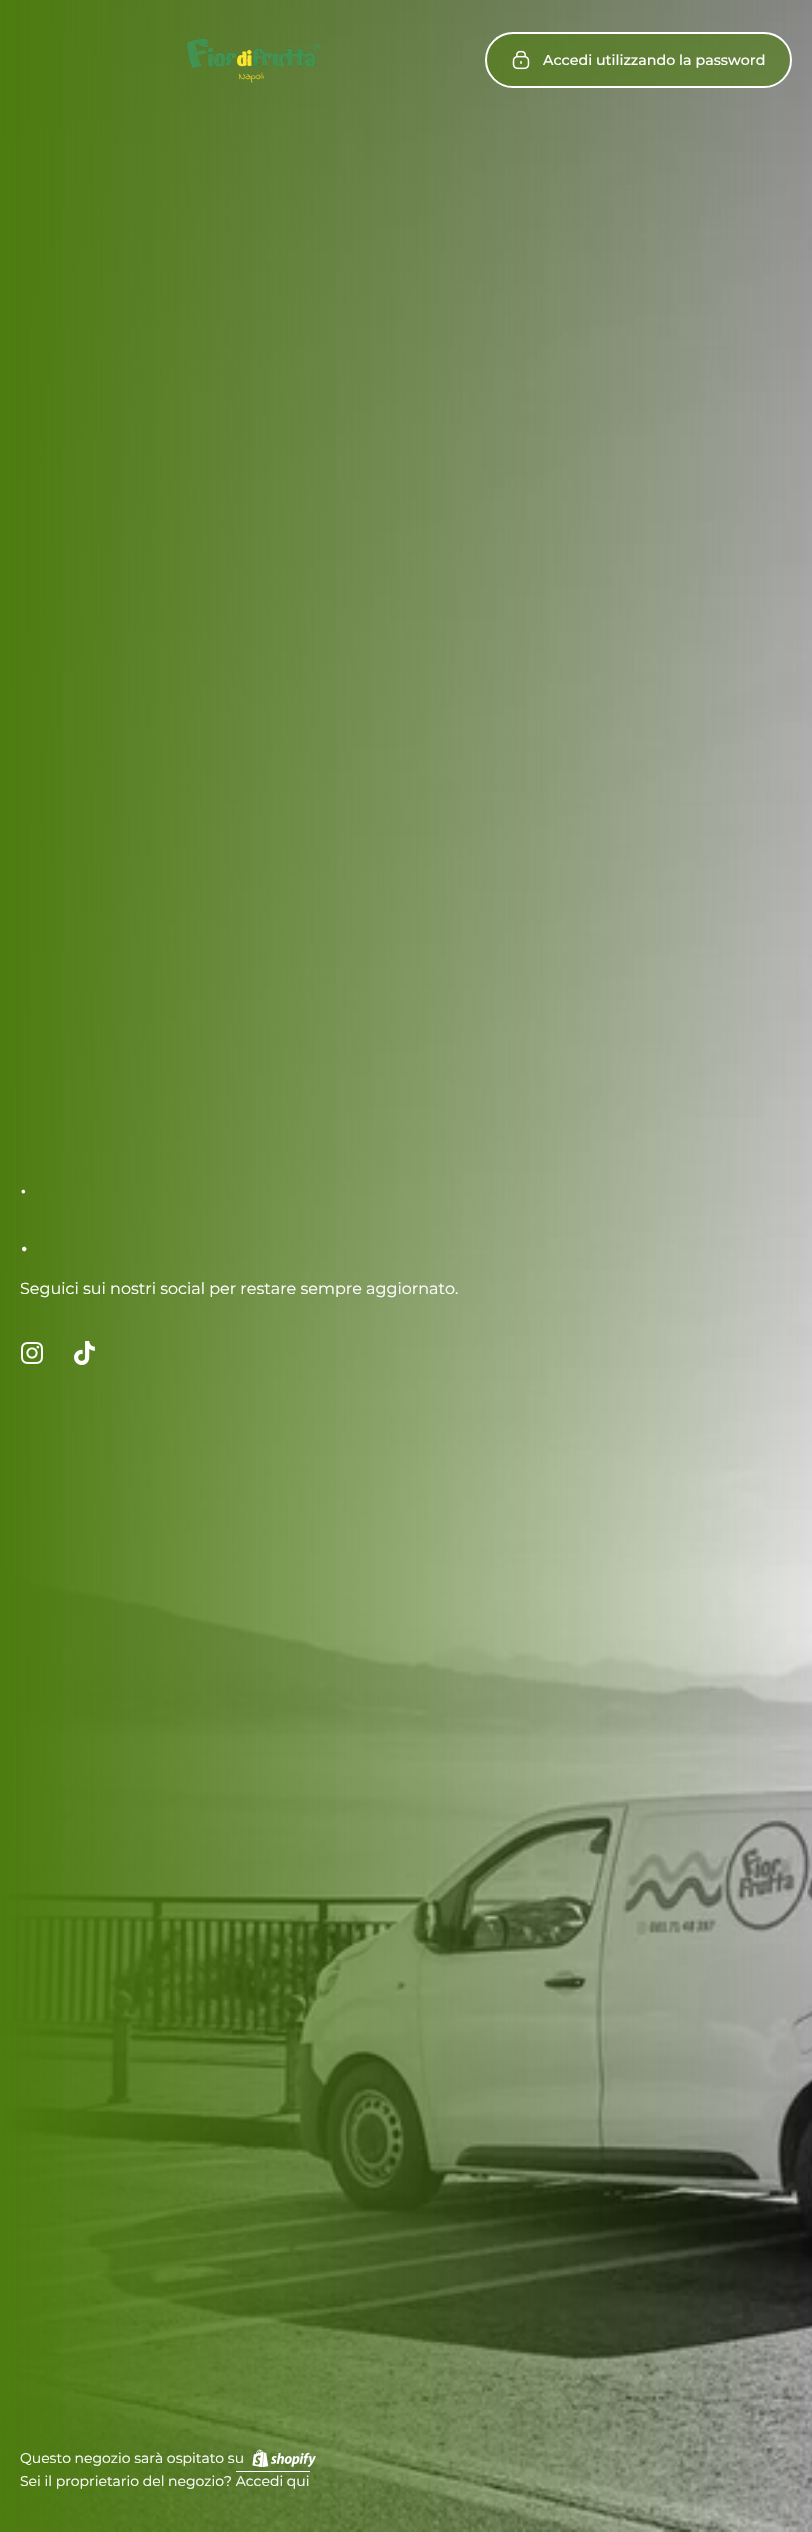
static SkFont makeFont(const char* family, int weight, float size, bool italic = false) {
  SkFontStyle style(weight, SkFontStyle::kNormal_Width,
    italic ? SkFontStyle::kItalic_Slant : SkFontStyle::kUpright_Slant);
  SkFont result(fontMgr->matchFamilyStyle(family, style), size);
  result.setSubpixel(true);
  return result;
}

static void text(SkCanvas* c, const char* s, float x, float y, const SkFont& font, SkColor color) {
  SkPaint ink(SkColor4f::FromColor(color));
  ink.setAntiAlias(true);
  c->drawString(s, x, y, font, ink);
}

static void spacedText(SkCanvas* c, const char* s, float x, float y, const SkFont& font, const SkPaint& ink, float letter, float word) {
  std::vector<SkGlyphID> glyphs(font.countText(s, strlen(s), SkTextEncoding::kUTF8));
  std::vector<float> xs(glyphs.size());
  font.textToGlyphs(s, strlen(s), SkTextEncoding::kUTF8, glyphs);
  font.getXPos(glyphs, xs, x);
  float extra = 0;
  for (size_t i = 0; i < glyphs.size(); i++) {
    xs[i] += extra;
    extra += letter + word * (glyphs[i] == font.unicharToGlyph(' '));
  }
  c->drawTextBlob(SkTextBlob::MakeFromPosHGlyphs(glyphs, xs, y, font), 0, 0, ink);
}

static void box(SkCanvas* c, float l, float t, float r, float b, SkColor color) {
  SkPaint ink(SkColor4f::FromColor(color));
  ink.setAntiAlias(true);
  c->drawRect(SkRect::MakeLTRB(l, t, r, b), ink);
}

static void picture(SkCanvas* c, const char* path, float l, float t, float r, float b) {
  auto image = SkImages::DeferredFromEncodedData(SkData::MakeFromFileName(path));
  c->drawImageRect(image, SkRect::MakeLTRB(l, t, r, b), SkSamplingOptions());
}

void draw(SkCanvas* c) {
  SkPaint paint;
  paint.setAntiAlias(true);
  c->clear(0xffffffff);
  picture(c, "img_03.png", 0, 0, 812, 2532);
  picture(c, "img_01.png", 186, 38, 321, 83);
  paint.setColor(0x994d7c0f);
  c->drawRoundRect(SkRect::MakeLTRB(486, 33, 791, 87), 27, 27, paint);
  paint.setStyle(SkPaint::kStroke_Style);
  paint.setStrokeWidth(2);
  paint.setColor(0xffffffff);
  c->drawRoundRect(SkRect::MakeLTRB(486, 33, 791, 87), 27, 27, paint);
  picture(c, "img_02.png", 512, 50, 530, 70);
  SkFont face1 = makeFont("Montserrat", 500, 14.25f);
  text(c, "Accedi utilizzando la password", 543, 65, face1, 0xffffffff);
  SkFont face2 = makeFont("Montserrat", 400, 32);
  paint.setStyle(SkPaint::kFill_Style);
  spacedText(c, ".", 20, 1193, face2, paint, -1, 0);
  SkFont face3 = makeFont("Montserrat", 400, 40);
  spacedText(c, ".", 20, 1251, face3, paint, -2, 0);
  SkFont face4 = makeFont("Montserrat", 400, 16);
  text(c, "Seguici sui nostri social per restare sempre aggiornato.", 20, 1294, face4, 0xffffffff);
  picture(c, "img_04.png", 21, 1342, 43, 1364);
  picture(c, "img_05.png", 74, 1341, 95, 1365);
  SkFont face5 = makeFont("Montserrat", 400, 14);
  text(c, "Questo negozio sarà ospitato su", 20, 2463, face5, 0xffffffff);
  picture(c, "img_06.png", 252, 2449, 316, 2467);
  box(c, 236, 2471, 310, 2472, 0xffffffff);
  text(c, "Sei il proprietario del negozio? Accedi qui", 20, 2486, face5, 0xffffffff);
}
